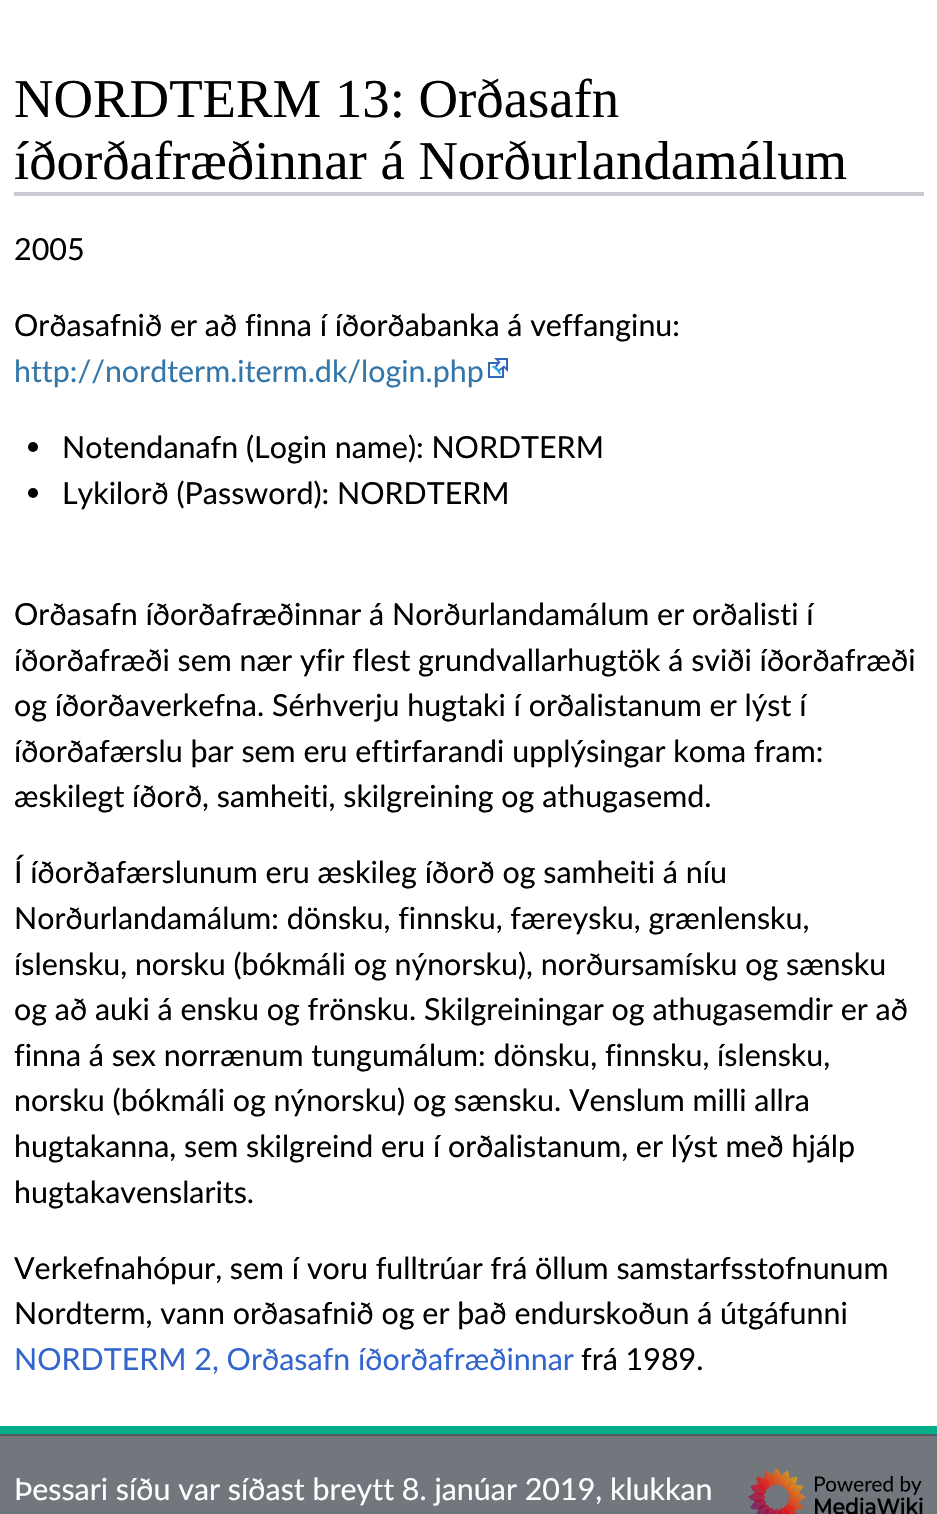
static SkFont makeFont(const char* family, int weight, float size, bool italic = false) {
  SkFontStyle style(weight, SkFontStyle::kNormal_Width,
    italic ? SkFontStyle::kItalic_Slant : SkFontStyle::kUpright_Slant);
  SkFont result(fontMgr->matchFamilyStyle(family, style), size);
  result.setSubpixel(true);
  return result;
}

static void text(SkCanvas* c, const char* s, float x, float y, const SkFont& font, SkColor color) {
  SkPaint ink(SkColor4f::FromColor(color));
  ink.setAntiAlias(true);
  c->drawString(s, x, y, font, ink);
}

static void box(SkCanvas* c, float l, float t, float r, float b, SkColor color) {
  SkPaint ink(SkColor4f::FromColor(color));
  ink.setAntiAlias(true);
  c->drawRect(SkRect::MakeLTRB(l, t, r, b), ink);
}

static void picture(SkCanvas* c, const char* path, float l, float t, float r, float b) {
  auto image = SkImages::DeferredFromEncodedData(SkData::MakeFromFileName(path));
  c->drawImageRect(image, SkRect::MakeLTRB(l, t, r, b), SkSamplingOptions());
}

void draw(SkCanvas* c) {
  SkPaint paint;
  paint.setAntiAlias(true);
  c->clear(0xff72777d);
  box(c, 0, 1426, 937, 1434, 0xff00af89);
  box(c, 0, 0, 937, 1426, 0xffffffff);
  box(c, 14, 192, 924, 196, 0xffc8ccd1);
  SkFont face1 = makeFont("Liberation Serif", 400, 54.75f);
  text(c, "NORDTERM 13: Orðasafn", 14, 117, face1, 0xff000000);
  text(c, "íðorðafræðinnar á Norðurlandamálum", 14, 179, face1, 0xff000000);
  SkFont face2 = makeFont("Lato", 400, 30.4f);
  text(c, "2005", 14, 260, face2, 0xff000000);
  text(c, "Orðasafnið er að finna í íðorðabanka á veffanginu:", 14, 336, face2, 0xff000000);
  text(c, "http://nordterm.iterm.dk/login.php", 14, 382, face2, 0xff3377aa);
  picture(c, "img_01.png", 488, 358, 508, 378);
  paint.setColor(0xff000000);
  c->drawCircle(33, 447, 5, paint);
  text(c, "Notendanafn (Login name): NORDTERM", 62, 458, face2, 0xff000000);
  c->drawCircle(33, 493, 5, paint);
  text(c, "Lykilorð (Password): NORDTERM", 62, 504, face2, 0xff000000);
  text(c, "Orðasafn íðorðafræðinnar á Norðurlandamálum er orðalisti í", 14, 625, face2, 0xff000000);
  text(c, "íðorðafræði sem nær yfir flest grundvallarhugtök á sviði íðorðafræði", 14, 671, face2, 0xff000000);
  text(c, "og íðorðaverkefna. Sérhverju hugtaki í orðalistanum er lýst í", 14, 716, face2, 0xff000000);
  text(c, "íðorðafærslu þar sem eru eftirfarandi upplýsingar koma fram:", 14, 762, face2, 0xff000000);
  text(c, "æskilegt íðorð, samheiti, skilgreining og athugasemd.", 14, 807, face2, 0xff000000);
  text(c, "Í íðorðafærslunum eru æskileg íðorð og samheiti á níu", 14, 883, face2, 0xff000000);
  text(c, "Norðurlandamálum: dönsku, finnsku, færeysku, grænlensku,", 14, 929, face2, 0xff000000);
  text(c, "íslensku, norsku (bókmáli og nýnorsku), norðursamísku og sænsku", 14, 975, face2, 0xff000000);
  text(c, "og að auki á ensku og frönsku. Skilgreiningar og athugasemdir er að", 14, 1020, face2, 0xff000000);
  text(c, "finna á sex norrænum tungumálum: dönsku, finnsku, íslensku,", 14, 1066, face2, 0xff000000);
  text(c, "norsku (bókmáli og nýnorsku) og sænsku. Venslum milli allra", 14, 1111, face2, 0xff000000);
  text(c, "hugtakanna, sem skilgreind eru í orðalistanum, er lýst með hjálp", 14, 1157, face2, 0xff000000);
  text(c, "hugtakavenslarits.", 14, 1203, face2, 0xff000000);
  text(c, "Verkefnahópur, sem í voru fulltrúar frá öllum samstarfsstofnunum", 14, 1279, face2, 0xff000000);
  text(c, "Nordterm, vann orðasafnið og er það endurskoðun á útgáfunni", 14, 1324, face2, 0xff000000);
  text(c, "NORDTERM 2, Orðasafn íðorðafræðinnar", 14, 1370, face2, 0xff3366cc);
  text(c, "frá 1989.", 581, 1370, face2, 0xff000000);
  box(c, 0, 1434, 937, 1436, 0xff54595d);
  text(c, "Þessari síðu var síðast breytt 8. janúar 2019, klukkan", 14, 1500, face2, 0xffffffff);
  picture(c, "img_02.png", 748, 1468, 923, 1514);
}
